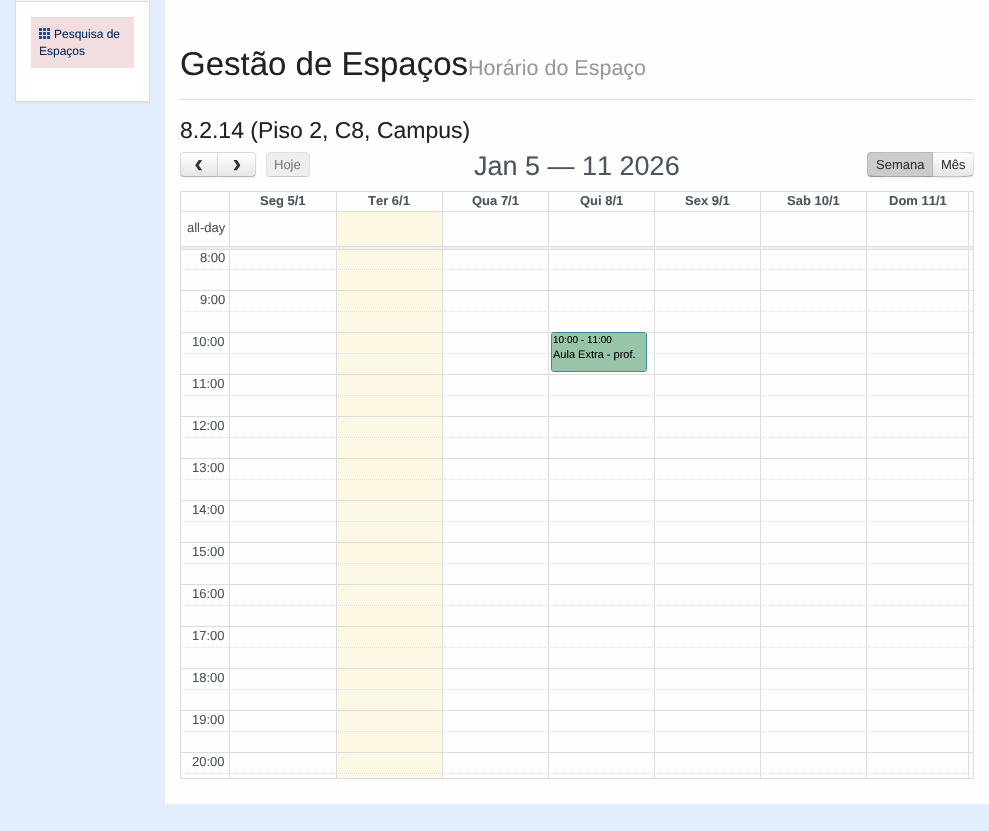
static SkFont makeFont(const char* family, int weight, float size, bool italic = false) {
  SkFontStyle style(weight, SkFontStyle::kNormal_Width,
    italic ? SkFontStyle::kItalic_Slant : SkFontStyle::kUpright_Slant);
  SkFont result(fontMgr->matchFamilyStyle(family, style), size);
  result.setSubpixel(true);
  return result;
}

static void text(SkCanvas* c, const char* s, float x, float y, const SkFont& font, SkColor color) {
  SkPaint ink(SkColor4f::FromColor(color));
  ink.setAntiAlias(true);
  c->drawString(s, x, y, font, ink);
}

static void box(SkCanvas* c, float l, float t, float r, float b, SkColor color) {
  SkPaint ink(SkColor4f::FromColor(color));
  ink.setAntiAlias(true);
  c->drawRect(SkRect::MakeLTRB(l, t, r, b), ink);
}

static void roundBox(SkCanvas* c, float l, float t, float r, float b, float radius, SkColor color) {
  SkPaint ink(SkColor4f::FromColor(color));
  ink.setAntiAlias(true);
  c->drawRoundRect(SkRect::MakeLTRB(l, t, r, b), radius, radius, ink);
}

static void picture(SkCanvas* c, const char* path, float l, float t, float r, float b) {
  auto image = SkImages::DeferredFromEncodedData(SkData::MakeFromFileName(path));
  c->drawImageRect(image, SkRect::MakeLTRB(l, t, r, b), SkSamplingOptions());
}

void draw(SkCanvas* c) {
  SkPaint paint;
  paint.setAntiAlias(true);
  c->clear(0xffe3eefd);
  paint.setColor(0x0d000000);
  paint.setMaskFilter(SkMaskFilter::MakeBlur(kNormal_SkBlurStyle, 0.5f));
  c->drawRoundRect(SkRect::MakeLTRB(15, -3, 150, 103), 1, 1, paint);
  paint.setMaskFilter(nullptr);
  paint.setColor(0xffffffff);
  c->drawRoundRect(SkRect::MakeLTRB(15.5f, -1.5f, 149.5f, 101.5f), 0.5f, 0.5f, paint);
  paint.setStyle(SkPaint::kStroke_Style);
  paint.setStrokeWidth(1);
  paint.setColor(0xffdddddd);
  c->drawRoundRect(SkRect::MakeLTRB(15.5f, -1.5f, 149.5f, 101.5f), 0.5f, 0.5f, paint);
  box(c, 16, 0, 149, 1, 0xfff5f5f5);
  box(c, 16, 1, 149, 2, 0xffdddddd);
  box(c, 31, 18, 134, 68, 0xfff2dede);
  box(c, 31, 17, 134, 18, 0xffdddddd);
  picture(c, "img_01.png", 39, 28, 50, 39);
  SkFont face1 = makeFont("Liberation Sans", 400, 12);
  text(c, "Pesquisa de", 54, 38, face1, 0xff072b5b);
  text(c, "Espaços", 39, 55, face1, 0xff072b5b);
  box(c, 165, 0, 989, 804, 0xfffefefe);
  box(c, 180, 99, 974, 100, 0xffdddddd);
  SkFont face2 = makeFont("Liberation Sans", 400, 33);
  text(c, "Gestão de Espaços", 180, 75, face2, 0xff222222);
  SkFont face3 = makeFont("Liberation Sans", 400, 21.5f);
  text(c, "Horário do Espaço", 468, 75, face3, 0xff999999);
  SkFont face4 = makeFont("Liberation Sans", 400, 23);
  text(c, "8.2.14 (Piso 2, C8, Campus)", 180, 138, face4, 0xff222222);
  paint.setStyle(SkPaint::kFill_Style);
  paint.setColor(0x0d000000);
  paint.setMaskFilter(SkMaskFilter::MakeBlur(kNormal_SkBlurStyle, 1));
  c->drawRoundRect(SkRect::MakeLTRB(180, 153, 218, 178), 4, 4, paint);
  paint.setMaskFilter(nullptr);
  paint.setColor(0xfff5f5f5);
  c->drawPath(SkPathBuilder().moveTo(184, 152).lineTo(218, 152).lineTo(218, 177).lineTo(184, 177).cubicTo(182, 177, 180, 175, 180, 173).lineTo(180, 156).cubicTo(180, 154, 182, 152, 184, 152).close().detach(), paint);
  c->save();
  c->clipPath(SkPathBuilder().moveTo(184, 152).lineTo(218, 152).lineTo(218, 177).lineTo(184, 177).cubicTo(182, 177, 180, 175, 180, 173).lineTo(180, 156).cubicTo(180, 154, 182, 152, 184, 152).close().detach(), true);
  {
    const SkColor colors[] = {0xffffffff, 0xffe6e6e6};
    const float stops[] = {0, 1};
    const SkPoint ends[] = {{199, 153}, {199, 176}};
    paint.setShader(SkGradientShader::MakeLinear(ends, colors, stops, 2, SkTileMode::kClamp));
    paint.setAlpha(255);
  }
  c->drawRect(SkRect::MakeLTRB(180, 153, 217, 176), paint);
  c->restore();
  paint.setShader(nullptr);
  paint.setColor(0x1a000000);
  c->drawPath(SkPathBuilder().moveTo(184, 152).cubicTo(183, 152, 182, 152.5f, 181, 153).lineTo(182, 154).cubicTo(182.5f, 153.5f, 183, 153, 184, 153).lineTo(217, 153).lineTo(218, 152).close().detach(), paint);
  paint.setColor(0x40000000);
  c->drawPath(SkPathBuilder().moveTo(218, 177).lineTo(217, 176).lineTo(184, 176).cubicTo(183, 176, 182.5f, 175.5f, 182, 175).lineTo(181, 176).cubicTo(182, 176.5f, 183, 177, 184, 177).close().detach(), paint);
  paint.setColor(0x1a000000);
  c->drawPath(SkPathBuilder().moveTo(180, 156).lineTo(180, 173).cubicTo(180, 174, 180.5f, 175, 181, 176).lineTo(182, 175).cubicTo(181.5f, 174.5f, 181, 174, 181, 173).lineTo(181, 156).cubicTo(181, 155, 181.5f, 154.5f, 182, 154).lineTo(181, 153).cubicTo(180.5f, 154, 180, 155, 180, 156).close().detach(), paint);
  SkFont face5 = makeFont("Liberation Mono", 700, 26);
  text(c, "‹", 191, 172, face5, 0xff333333);
  paint.setColor(0x0d000000);
  paint.setMaskFilter(SkMaskFilter::MakeBlur(kNormal_SkBlurStyle, 1));
  c->drawRoundRect(SkRect::MakeLTRB(217, 153, 256, 178), 4, 4, paint);
  paint.setMaskFilter(nullptr);
  paint.setColor(0xfff5f5f5);
  c->drawPath(SkPathBuilder().moveTo(217, 152).lineTo(252, 152).cubicTo(254, 152, 256, 154, 256, 156).lineTo(256, 173).cubicTo(256, 175, 254, 177, 252, 177).lineTo(217, 177).close().detach(), paint);
  c->save();
  c->clipPath(SkPathBuilder().moveTo(217, 152).lineTo(252, 152).cubicTo(254, 152, 256, 154, 256, 156).lineTo(256, 173).cubicTo(256, 175, 254, 177, 252, 177).lineTo(217, 177).close().detach(), true);
  {
    const SkColor colors[] = {0xffffffff, 0xffe6e6e6};
    const float stops[] = {0, 1};
    const SkPoint ends[] = {{237, 153}, {237, 176}};
    paint.setShader(SkGradientShader::MakeLinear(ends, colors, stops, 2, SkTileMode::kClamp));
    paint.setAlpha(255);
  }
  c->drawRect(SkRect::MakeLTRB(217, 153, 256, 176), paint);
  c->restore();
  paint.setShader(nullptr);
  paint.setColor(0x1a000000);
  c->drawPath(SkPathBuilder().moveTo(217, 152).lineTo(218, 153).lineTo(252, 153).cubicTo(253, 153, 253.5f, 153.5f, 254, 154).lineTo(255, 153).cubicTo(254, 152.5f, 253, 152, 252, 152).close().detach(), paint);
  c->drawPath(SkPathBuilder().moveTo(256, 173).lineTo(256, 156).cubicTo(256, 155, 255.5f, 154, 255, 153).lineTo(254, 154).cubicTo(254.5f, 154.5f, 255, 155, 255, 156).lineTo(255, 173).cubicTo(255, 174, 254.5f, 174.5f, 254, 175).lineTo(255, 176).cubicTo(255.5f, 175, 256, 174, 256, 173).close().detach(), paint);
  paint.setColor(0x40000000);
  c->drawPath(SkPathBuilder().moveTo(252, 177).cubicTo(253, 177, 254, 176.5f, 255, 176).lineTo(254, 175).cubicTo(253.5f, 175.5f, 253, 176, 252, 176).lineTo(218, 176).lineTo(217, 177).close().detach(), paint);
  paint.setColor(0x1a000000);
  c->drawPath(SkPathBuilder().moveTo(217, 152).lineTo(217, 177).lineTo(218, 176).lineTo(218, 153).close().detach(), paint);
  text(c, "›", 229, 172, face5, 0xff333333);
  roundBox(c, 266, 152, 310, 177, 4, 0xffeeeeee);
  paint.setStyle(SkPaint::kStroke_Style);
  paint.setColor(0x40595959);
  c->drawPath(SkPathBuilder().moveTo(308.5f, 175.5f).cubicTo(308, 176, 307, 176.5f, 306, 176.5f).lineTo(270, 176.5f).cubicTo(269, 176.5f, 268, 176, 267.5f, 175.5f).detach(), paint);
  paint.setColor(0x1a595959);
  c->drawPath(SkPathBuilder().moveTo(267.5f, 175.5f).cubicTo(265.5f, 173, 266.5f, 167, 266.5f, 164.5f).cubicTo(266.5f, 153, 264.5f, 152.5f, 276, 152.5f).lineTo(300, 152.5f).cubicTo(311.5f, 152.5f, 309.5f, 153, 309.5f, 164.5f).cubicTo(309.5f, 167, 310.5f, 173, 308.5f, 175.5f).detach(), paint);
  SkFont face6 = makeFont("Liberation Sans", 400, 13);
  text(c, "Hoje", 274, 169, face6, 0xff7a7a7a);
  SkFont face7 = makeFont("Liberation Sans", 400, 27);
  text(c, "Jan 5 — 11 2026", 474, 175, face7, 0xff4b565c);
  paint.setStyle(SkPaint::kFill_Style);
  paint.setColor(0x0d000000);
  paint.setMaskFilter(SkMaskFilter::MakeBlur(kNormal_SkBlurStyle, 1));
  c->drawRoundRect(SkRect::MakeLTRB(932, 153, 974, 178), 4, 4, paint);
  paint.setMaskFilter(nullptr);
  paint.setColor(0xfff5f5f5);
  c->drawPath(SkPathBuilder().moveTo(932, 152).lineTo(970, 152).cubicTo(972, 152, 974, 154, 974, 156).lineTo(974, 173).cubicTo(974, 175, 972, 177, 970, 177).lineTo(932, 177).close().detach(), paint);
  c->save();
  c->clipPath(SkPathBuilder().moveTo(932, 152).lineTo(970, 152).cubicTo(972, 152, 974, 154, 974, 156).lineTo(974, 173).cubicTo(974, 175, 972, 177, 970, 177).lineTo(932, 177).close().detach(), true);
  {
    const SkColor colors[] = {0xffffffff, 0xffe6e6e6};
    const float stops[] = {0, 1};
    const SkPoint ends[] = {{953, 153}, {953, 176}};
    paint.setShader(SkGradientShader::MakeLinear(ends, colors, stops, 2, SkTileMode::kClamp));
    paint.setAlpha(255);
  }
  c->drawRect(SkRect::MakeLTRB(933, 153, 974, 176), paint);
  c->restore();
  paint.setShader(nullptr);
  paint.setColor(0x1a000000);
  c->drawPath(SkPathBuilder().moveTo(932, 152).lineTo(933, 153).cubicTo(938, 153, 969, 152, 972, 154).lineTo(973, 153).lineTo(971, 152).close().detach(), paint);
  c->drawPath(SkPathBuilder().moveTo(973, 153).cubicTo(974.5f, 155.5f, 974.5f, 173.5f, 972.5f, 175.5f).lineTo(972, 175).cubicTo(972.5f, 174.5f, 973, 173.5f, 973, 172.5f).lineTo(973, 156).cubicTo(973, 155.5f, 972.5f, 154.5f, 972, 154).close().detach(), paint);
  paint.setColor(0x40000000);
  c->drawPath(SkPathBuilder().moveTo(972, 176).lineTo(973, 176).lineTo(972, 175).cubicTo(969, 177, 938, 176, 933, 176).lineTo(932, 177).cubicTo(937, 177, 970, 178, 972, 176).close().detach(), paint);
  paint.setColor(0x0d000000);
  paint.setMaskFilter(SkMaskFilter::MakeBlur(kNormal_SkBlurStyle, 1));
  c->drawRoundRect(SkRect::MakeLTRB(867, 153, 933, 178), 4, 4, paint);
  paint.setMaskFilter(nullptr);
  paint.setColor(0xffcccccc);
  c->drawPath(SkPathBuilder().moveTo(871, 152).lineTo(933, 152).lineTo(933, 177).lineTo(871, 177).cubicTo(869, 177, 867, 175, 867, 173).lineTo(867, 156).cubicTo(867, 154, 869, 152, 871, 152).close().detach(), paint);
  paint.setColor(0x1a000000);
  c->drawPath(SkPathBuilder().moveTo(871, 152).lineTo(868, 153).lineTo(869, 154).cubicTo(870, 152, 925, 153, 932, 153).lineTo(933, 152).close().detach(), paint);
  c->drawPath(SkPathBuilder().moveTo(933, 152).lineTo(932, 153).lineTo(932, 176).lineTo(933, 177).close().detach(), paint);
  paint.setColor(0x40000000);
  c->drawPath(SkPathBuilder().moveTo(933, 177).lineTo(932, 176).cubicTo(925, 176, 870, 177, 869, 175).lineTo(868, 176).lineTo(871, 177).close().detach(), paint);
  paint.setColor(0x1a000000);
  c->drawPath(SkPathBuilder().moveTo(867, 156).lineTo(867, 173).cubicTo(867, 174, 867.5f, 175, 868, 176).lineTo(869, 175).cubicTo(867, 173.5f, 868, 166.5f, 868, 164.5f).cubicTo(868, 162.5f, 867, 155.5f, 869, 154).lineTo(868, 153).cubicTo(867.5f, 154, 867, 155, 867, 156).close().detach(), paint);
  text(c, "Semana", 876, 169, face6, 0xff333333);
  text(c, "Mês", 941, 169, face6, 0xff333333);
  paint.setStyle(SkPaint::kStroke_Style);
  paint.setColor(0xffdddddd);
  c->drawRect(SkRect::MakeLTRB(180.5f, 191.5f, 229.5f, 211.5f), paint);
  box(c, 230, 191, 968, 192, 0xffdddddd);
  box(c, 230, 211, 968, 212, 0xffdddddd);
  SkFont face8 = makeFont("Liberation Sans", 700, 13);
  text(c, "Seg 5/1", 260, 205, face8, 0xff4b565c);
  box(c, 336, 191, 337, 212, 0xffdddddd);
  text(c, "Ter 6/1", 368, 205, face8, 0xff4b565c);
  box(c, 442, 191, 443, 212, 0xffdddddd);
  text(c, "Qua 7/1", 472, 205, face8, 0xff4b565c);
  box(c, 548, 191, 549, 212, 0xffdddddd);
  text(c, "Qui 8/1", 580, 205, face8, 0xff4b565c);
  box(c, 654, 191, 655, 212, 0xffdddddd);
  text(c, "Sex 9/1", 685, 205, face8, 0xff4b565c);
  box(c, 760, 191, 761, 212, 0xffdddddd);
  text(c, "Sab 10/1", 787, 205, face8, 0xff4b565c);
  box(c, 866, 191, 867, 212, 0xffdddddd);
  text(c, "Dom 11/1", 889, 205, face8, 0xff4b565c);
  c->drawRect(SkRect::MakeLTRB(968.5f, 191.5f, 973.5f, 211.5f), paint);
  box(c, 229, 212, 230, 779, 0xffdddddd);
  box(c, 180, 778, 968, 779, 0xffdddddd);
  box(c, 180, 212, 181, 779, 0xffdddddd);
  box(c, 337, 212, 442, 778, 0xfffcf8e3);
  box(c, 336, 212, 337, 779, 0xffdddddd);
  box(c, 442, 212, 443, 779, 0xffdddddd);
  box(c, 548, 212, 549, 779, 0xffdddddd);
  box(c, 654, 212, 655, 779, 0xffdddddd);
  box(c, 760, 212, 761, 779, 0xffdddddd);
  box(c, 866, 212, 867, 779, 0xffdddddd);
  box(c, 973, 212, 974, 779, 0xffdddddd);
  box(c, 968, 778, 974, 779, 0xffdddddd);
  box(c, 968, 212, 969, 779, 0xffdddddd);
  text(c, "all-day", 187, 232, face6, 0xff4b565c);
  c->drawRect(SkRect::MakeLTRB(180.5f, 246.5f, 973.5f, 249.5f), paint);
  box(c, 181, 247, 973, 249, 0xffeeeeee);
  text(c, "8:00", 200, 262, face6, 0xff4b565c);
  paint.setPathEffect(SkDashPathEffect::Make({{1, 1}}, 0));
  c->drawPath(SkPathBuilder().moveTo(180, 269.5f).lineTo(230, 269.5f).detach(), paint);
  paint.setPathEffect(nullptr);
  paint.setPathEffect(SkDashPathEffect::Make({{1, 1}}, 0));
  c->drawPath(SkPathBuilder().moveTo(230, 269.5f).lineTo(974, 269.5f).detach(), paint);
  paint.setPathEffect(nullptr);
  box(c, 180, 290, 974, 291, 0xffdddddd);
  text(c, "9:00", 200, 304, face6, 0xff4b565c);
  paint.setPathEffect(SkDashPathEffect::Make({{1, 1}}, 0));
  c->drawPath(SkPathBuilder().moveTo(180, 311.5f).lineTo(230, 311.5f).detach(), paint);
  paint.setPathEffect(nullptr);
  paint.setPathEffect(SkDashPathEffect::Make({{1, 1}}, 0));
  c->drawPath(SkPathBuilder().moveTo(230, 311.5f).lineTo(974, 311.5f).detach(), paint);
  paint.setPathEffect(nullptr);
  box(c, 180, 332, 974, 333, 0xffdddddd);
  text(c, "10:00", 192, 346, face6, 0xff4b565c);
  paint.setPathEffect(SkDashPathEffect::Make({{1, 1}}, 0));
  c->drawPath(SkPathBuilder().moveTo(180, 353.5f).lineTo(230, 353.5f).detach(), paint);
  paint.setPathEffect(nullptr);
  paint.setPathEffect(SkDashPathEffect::Make({{1, 1}}, 0));
  c->drawPath(SkPathBuilder().moveTo(230, 353.5f).lineTo(974, 353.5f).detach(), paint);
  paint.setPathEffect(nullptr);
  box(c, 180, 374, 974, 375, 0xffdddddd);
  text(c, "11:00", 192, 388, face6, 0xff4b565c);
  paint.setPathEffect(SkDashPathEffect::Make({{1, 1}}, 0));
  c->drawPath(SkPathBuilder().moveTo(180, 395.5f).lineTo(230, 395.5f).detach(), paint);
  paint.setPathEffect(nullptr);
  paint.setPathEffect(SkDashPathEffect::Make({{1, 1}}, 0));
  c->drawPath(SkPathBuilder().moveTo(230, 395.5f).lineTo(974, 395.5f).detach(), paint);
  paint.setPathEffect(nullptr);
  box(c, 180, 416, 974, 417, 0xffdddddd);
  text(c, "12:00", 192, 430, face6, 0xff4b565c);
  paint.setPathEffect(SkDashPathEffect::Make({{1, 1}}, 0));
  c->drawPath(SkPathBuilder().moveTo(180, 437.5f).lineTo(230, 437.5f).detach(), paint);
  paint.setPathEffect(nullptr);
  paint.setPathEffect(SkDashPathEffect::Make({{1, 1}}, 0));
  c->drawPath(SkPathBuilder().moveTo(230, 437.5f).lineTo(974, 437.5f).detach(), paint);
  paint.setPathEffect(nullptr);
  box(c, 180, 458, 974, 459, 0xffdddddd);
  text(c, "13:00", 192, 472, face6, 0xff4b565c);
  paint.setPathEffect(SkDashPathEffect::Make({{1, 1}}, 0));
  c->drawPath(SkPathBuilder().moveTo(180, 479.5f).lineTo(230, 479.5f).detach(), paint);
  paint.setPathEffect(nullptr);
  paint.setPathEffect(SkDashPathEffect::Make({{1, 1}}, 0));
  c->drawPath(SkPathBuilder().moveTo(230, 479.5f).lineTo(974, 479.5f).detach(), paint);
  paint.setPathEffect(nullptr);
  box(c, 180, 500, 974, 501, 0xffdddddd);
  text(c, "14:00", 192, 514, face6, 0xff4b565c);
  paint.setPathEffect(SkDashPathEffect::Make({{1, 1}}, 0));
  c->drawPath(SkPathBuilder().moveTo(180, 521.5f).lineTo(230, 521.5f).detach(), paint);
  paint.setPathEffect(nullptr);
  paint.setPathEffect(SkDashPathEffect::Make({{1, 1}}, 0));
  c->drawPath(SkPathBuilder().moveTo(230, 521.5f).lineTo(974, 521.5f).detach(), paint);
  paint.setPathEffect(nullptr);
  box(c, 180, 542, 974, 543, 0xffdddddd);
  text(c, "15:00", 192, 556, face6, 0xff4b565c);
  paint.setPathEffect(SkDashPathEffect::Make({{1, 1}}, 0));
  c->drawPath(SkPathBuilder().moveTo(180, 563.5f).lineTo(230, 563.5f).detach(), paint);
  paint.setPathEffect(nullptr);
  paint.setPathEffect(SkDashPathEffect::Make({{1, 1}}, 0));
  c->drawPath(SkPathBuilder().moveTo(230, 563.5f).lineTo(974, 563.5f).detach(), paint);
  paint.setPathEffect(nullptr);
  box(c, 180, 584, 974, 585, 0xffdddddd);
  text(c, "16:00", 192, 598, face6, 0xff4b565c);
  paint.setPathEffect(SkDashPathEffect::Make({{1, 1}}, 0));
  c->drawPath(SkPathBuilder().moveTo(180, 605.5f).lineTo(230, 605.5f).detach(), paint);
  paint.setPathEffect(nullptr);
  paint.setPathEffect(SkDashPathEffect::Make({{1, 1}}, 0));
  c->drawPath(SkPathBuilder().moveTo(230, 605.5f).lineTo(974, 605.5f).detach(), paint);
  paint.setPathEffect(nullptr);
  box(c, 180, 626, 974, 627, 0xffdddddd);
  text(c, "17:00", 192, 640, face6, 0xff4b565c);
  paint.setPathEffect(SkDashPathEffect::Make({{1, 1}}, 0));
  c->drawPath(SkPathBuilder().moveTo(180, 647.5f).lineTo(230, 647.5f).detach(), paint);
  paint.setPathEffect(nullptr);
  paint.setPathEffect(SkDashPathEffect::Make({{1, 1}}, 0));
  c->drawPath(SkPathBuilder().moveTo(230, 647.5f).lineTo(974, 647.5f).detach(), paint);
  paint.setPathEffect(nullptr);
  box(c, 180, 668, 974, 669, 0xffdddddd);
  text(c, "18:00", 192, 682, face6, 0xff4b565c);
  paint.setPathEffect(SkDashPathEffect::Make({{1, 1}}, 0));
  c->drawPath(SkPathBuilder().moveTo(180, 689.5f).lineTo(230, 689.5f).detach(), paint);
  paint.setPathEffect(nullptr);
  paint.setPathEffect(SkDashPathEffect::Make({{1, 1}}, 0));
  c->drawPath(SkPathBuilder().moveTo(230, 689.5f).lineTo(974, 689.5f).detach(), paint);
  paint.setPathEffect(nullptr);
  box(c, 180, 710, 974, 711, 0xffdddddd);
  text(c, "19:00", 192, 724, face6, 0xff4b565c);
  paint.setPathEffect(SkDashPathEffect::Make({{1, 1}}, 0));
  c->drawPath(SkPathBuilder().moveTo(180, 731.5f).lineTo(230, 731.5f).detach(), paint);
  paint.setPathEffect(nullptr);
  paint.setPathEffect(SkDashPathEffect::Make({{1, 1}}, 0));
  c->drawPath(SkPathBuilder().moveTo(230, 731.5f).lineTo(974, 731.5f).detach(), paint);
  paint.setPathEffect(nullptr);
  box(c, 180, 752, 974, 753, 0xffdddddd);
  text(c, "20:00", 192, 766, face6, 0xff4b565c);
  paint.setPathEffect(SkDashPathEffect::Make({{1, 1}}, 0));
  c->drawPath(SkPathBuilder().moveTo(180, 773.5f).lineTo(230, 773.5f).detach(), paint);
  paint.setPathEffect(nullptr);
  paint.setPathEffect(SkDashPathEffect::Make({{1, 1}}, 0));
  c->drawPath(SkPathBuilder().moveTo(230, 773.5f).lineTo(974, 773.5f).detach(), paint);
  paint.setPathEffect(nullptr);
  paint.setStyle(SkPaint::kFill_Style);
  paint.setColor(0xff75b08a);
  c->drawRoundRect(SkRect::MakeLTRB(551.5f, 332.5f, 646.5f, 371.5f), 2.5f, 2.5f, paint);
  paint.setStyle(SkPaint::kStroke_Style);
  paint.setColor(0xff3a87ad);
  c->drawRoundRect(SkRect::MakeLTRB(551.5f, 332.5f, 646.5f, 371.5f), 2.5f, 2.5f, paint);
  box(c, 552, 333, 646, 371, 0x40ffffff);
  SkFont face9 = makeFont("Liberation Sans", 400, 10);
  text(c, "10:00 - 11:00", 553, 343, face9, 0xff000000);
  SkFont face10 = makeFont("Liberation Sans", 400, 11);
  text(c, "Aula Extra - prof.", 553, 358, face10, 0xff000000);
}
